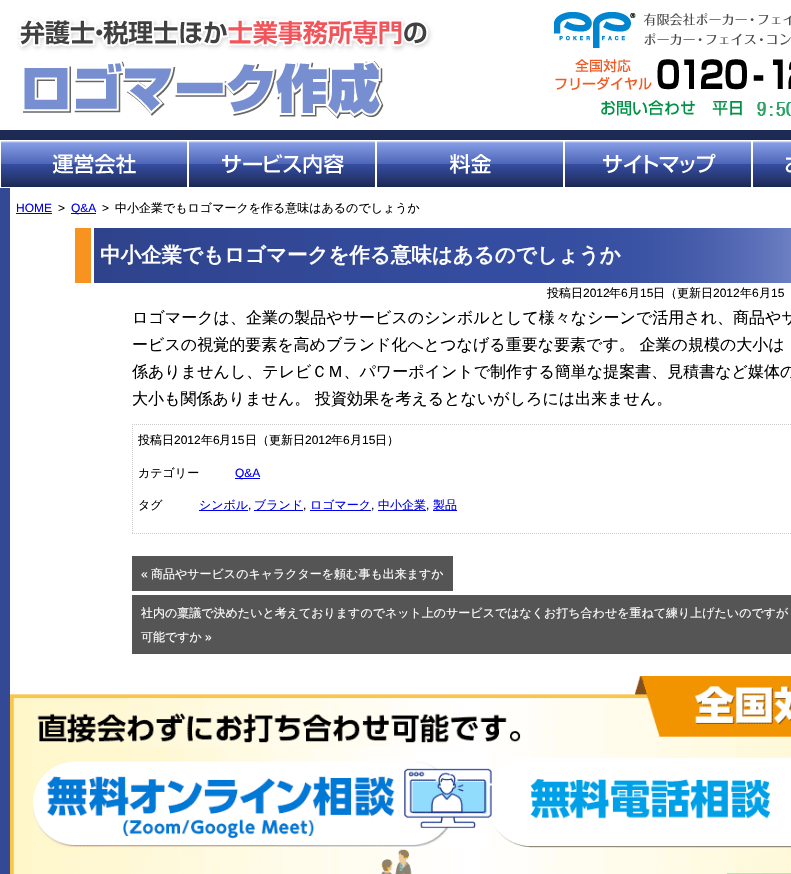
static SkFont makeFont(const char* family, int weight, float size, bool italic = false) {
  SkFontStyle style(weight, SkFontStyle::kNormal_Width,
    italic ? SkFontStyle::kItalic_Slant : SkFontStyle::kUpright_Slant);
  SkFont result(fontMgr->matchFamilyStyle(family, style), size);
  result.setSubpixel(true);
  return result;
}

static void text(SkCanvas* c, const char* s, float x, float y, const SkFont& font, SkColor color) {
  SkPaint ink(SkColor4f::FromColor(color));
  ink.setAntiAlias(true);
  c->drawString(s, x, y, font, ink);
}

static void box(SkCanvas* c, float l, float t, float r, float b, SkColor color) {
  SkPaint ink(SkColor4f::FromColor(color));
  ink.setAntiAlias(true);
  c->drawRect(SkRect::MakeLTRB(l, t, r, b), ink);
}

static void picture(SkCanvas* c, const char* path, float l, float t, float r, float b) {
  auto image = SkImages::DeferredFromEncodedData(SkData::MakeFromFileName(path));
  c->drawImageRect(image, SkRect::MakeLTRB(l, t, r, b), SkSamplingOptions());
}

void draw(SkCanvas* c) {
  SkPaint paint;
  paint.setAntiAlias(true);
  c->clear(0xffffffff);
  picture(c, "img_01.png", 0, 0, 791, 130);
  picture(c, "img_02.png", 17, 12, 791, 119);
  box(c, 18, 18, 432, 119, 0x40ffffff);
  box(c, 0, 130, 791, 140, 0xff1d2a53);
  picture(c, "img_03.png", 0, 140, 188, 188);
  picture(c, "img_04.png", 188, 140, 376, 188);
  picture(c, "img_05.png", 376, 140, 564, 188);
  picture(c, "img_06.png", 564, 140, 752, 188);
  picture(c, "img_07.png", 752, 140, 791, 188);
  box(c, 0, 188, 10, 874, 0xff334995);
  SkFont face1 = makeFont("Liberation Sans", 400, 12);
  text(c, "HOME", 16, 212, face1, 0xff0000ee);
  box(c, 16, 213, 52, 214, 0xff0000ee);
  text(c, ">", 58, 212, face1, 0xff000000);
  box(c, 71, 213, 96, 214, 0xff0000ee);
  text(c, "Q&A", 71, 212, face1, 0xff0000ee);
  text(c, ">", 102, 212, face1, 0xff000000);
  SkFont face2 = makeFont("WenQuanYi Zen Hei", 500, 12);
  text(c, "中小企業でもロゴマークを作る意味はあるのでしょうか", 115, 212, face2, 0xff000000);
  picture(c, "img_08.png", 75, 228, 791, 283);
  SkFont face3 = makeFont("WenQuanYi Zen Hei", 700, 20.5f);
  text(c, "中小企業でもロゴマークを作る意味はあるのでしょうか", 100, 262, face3, 0xffffffff);
  text(c, "投稿日", 547, 297, face2, 0xff000000);
  text(c, "2012", 583, 297, face1, 0xff000000);
  text(c, "年", 609, 297, face2, 0xff000000);
  text(c, "6", 621, 297, face1, 0xff000000);
  text(c, "月", 628, 297, face2, 0xff000000);
  text(c, "15", 640, 297, face1, 0xff000000);
  text(c, "日（更新日", 653, 297, face2, 0xff000000);
  text(c, "2012", 713, 297, face1, 0xff000000);
  text(c, "年", 740, 297, face2, 0xff000000);
  text(c, "6", 752, 297, face1, 0xff000000);
  text(c, "月", 759, 297, face2, 0xff000000);
  text(c, "15", 771, 297, face1, 0xff000000);
  SkFont face4 = makeFont("WenQuanYi Zen Hei", 500, 16);
  text(c, "ロゴマークは、企業の製品やサービスのシンボルとして様々なシーンで活用され、商品やサ", 132, 323, face4, 0xff000000);
  text(c, "ービスの視覚的要素を高めブランド化へとつなげる重要な要素です。 企業の規模の大小は", 132, 350, face4, 0xff000000);
  text(c, "係ありませんし、テレビＣＭ、パワーポイントで制作する簡単な提案書、見積書など媒体の", 132, 377, face4, 0xff000000);
  text(c, "大小も関係ありません。 投資効果を考えるとないがしろには出来ません。", 132, 404, face4, 0xff000000);
  paint.setStyle(SkPaint::kStroke_Style);
  paint.setStrokeWidth(1);
  paint.setColor(0xffcccccc);
  paint.setPathEffect(SkDashPathEffect::Make({{1, 1}}, 0));
  c->drawPath(SkPathBuilder().moveTo(132, 424.5f).lineTo(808, 424.5f).detach(), paint);
  paint.setPathEffect(nullptr);
  paint.setPathEffect(SkDashPathEffect::Make({{1, 1}}, 0));
  c->drawPath(SkPathBuilder().moveTo(132, 533.5f).lineTo(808, 533.5f).detach(), paint);
  paint.setPathEffect(nullptr);
  paint.setPathEffect(SkDashPathEffect::Make({{1, 1}}, 0));
  c->drawPath(SkPathBuilder().moveTo(132.5f, 424).lineTo(132.5f, 534).detach(), paint);
  paint.setPathEffect(nullptr);
  text(c, "投稿日", 138, 444, face2, 0xff000000);
  text(c, "2012", 174, 444, face1, 0xff000000);
  text(c, "年", 201, 444, face2, 0xff000000);
  text(c, "6", 213, 444, face1, 0xff000000);
  text(c, "月", 219, 444, face2, 0xff000000);
  text(c, "15", 231, 444, face1, 0xff000000);
  text(c, "日（更新日", 245, 444, face2, 0xff000000);
  text(c, "2012", 305, 444, face1, 0xff000000);
  text(c, "年", 331, 444, face2, 0xff000000);
  text(c, "6", 343, 444, face1, 0xff000000);
  text(c, "月", 350, 444, face2, 0xff000000);
  text(c, "15", 362, 444, face1, 0xff000000);
  text(c, "日）", 375, 444, face2, 0xff000000);
  text(c, "カテゴリー", 138, 477, face2, 0xff000000);
  box(c, 235, 478, 260, 479, 0xff0000ee);
  text(c, "Q&A", 235, 477, face1, 0xff0000ee);
  text(c, "タグ", 138, 509, face2, 0xff000000);
  box(c, 199, 510, 248, 511, 0xff0000ee);
  text(c, "シンボル", 199, 509, face2, 0xff0000ee);
  text(c, ",", 248, 509, face1, 0xff000000);
  box(c, 254, 510, 303, 511, 0xff0000ee);
  text(c, "ブランド", 254, 509, face2, 0xff0000ee);
  text(c, ",", 303, 509, face1, 0xff000000);
  box(c, 310, 510, 371, 511, 0xff0000ee);
  text(c, "ロゴマーク", 310, 509, face2, 0xff0000ee);
  text(c, ",", 371, 509, face1, 0xff000000);
  box(c, 378, 510, 426, 511, 0xff0000ee);
  text(c, "中小企業", 378, 509, face2, 0xff0000ee);
  text(c, ",", 426, 509, face1, 0xff000000);
  box(c, 433, 510, 457, 511, 0xff0000ee);
  text(c, "製品", 433, 509, face2, 0xff0000ee);
  box(c, 132, 556, 453, 591, 0xff555555);
  text(c, "«", 141, 578, face1, 0xffffffff);
  text(c, "商品やサービスのキャラクターを頼む事も出来ますか", 151, 578, face2, 0xffffffff);
  box(c, 132, 595, 791, 654, 0xff555555);
  text(c, "社内の稟議で決めたいと考えておりますのでネット上のサービスではなくお打ち合わせを重ねて練り上げたいのですが", 141, 617, face2, 0xffffffff);
  text(c, "可能ですか", 141, 641, face2, 0xffffffff);
  text(c, "»", 205, 641, face1, 0xffffffff);
  picture(c, "img_09.png", 10, 676, 791, 874);
}
